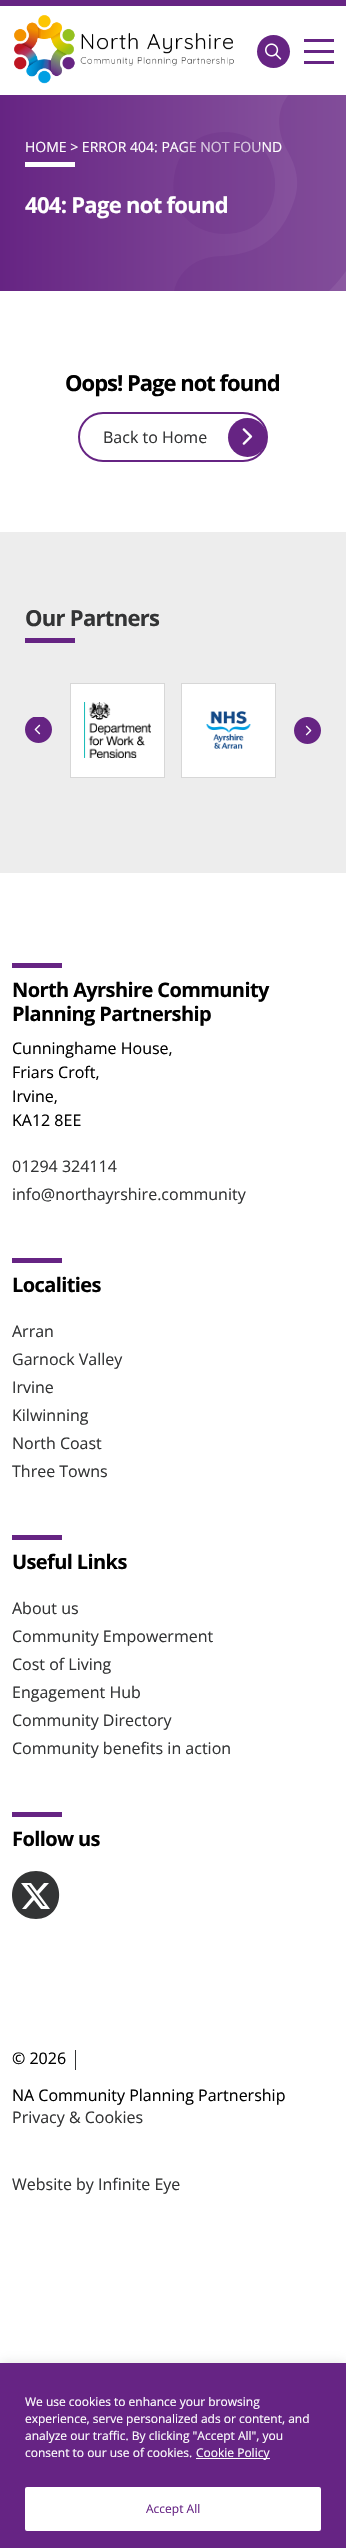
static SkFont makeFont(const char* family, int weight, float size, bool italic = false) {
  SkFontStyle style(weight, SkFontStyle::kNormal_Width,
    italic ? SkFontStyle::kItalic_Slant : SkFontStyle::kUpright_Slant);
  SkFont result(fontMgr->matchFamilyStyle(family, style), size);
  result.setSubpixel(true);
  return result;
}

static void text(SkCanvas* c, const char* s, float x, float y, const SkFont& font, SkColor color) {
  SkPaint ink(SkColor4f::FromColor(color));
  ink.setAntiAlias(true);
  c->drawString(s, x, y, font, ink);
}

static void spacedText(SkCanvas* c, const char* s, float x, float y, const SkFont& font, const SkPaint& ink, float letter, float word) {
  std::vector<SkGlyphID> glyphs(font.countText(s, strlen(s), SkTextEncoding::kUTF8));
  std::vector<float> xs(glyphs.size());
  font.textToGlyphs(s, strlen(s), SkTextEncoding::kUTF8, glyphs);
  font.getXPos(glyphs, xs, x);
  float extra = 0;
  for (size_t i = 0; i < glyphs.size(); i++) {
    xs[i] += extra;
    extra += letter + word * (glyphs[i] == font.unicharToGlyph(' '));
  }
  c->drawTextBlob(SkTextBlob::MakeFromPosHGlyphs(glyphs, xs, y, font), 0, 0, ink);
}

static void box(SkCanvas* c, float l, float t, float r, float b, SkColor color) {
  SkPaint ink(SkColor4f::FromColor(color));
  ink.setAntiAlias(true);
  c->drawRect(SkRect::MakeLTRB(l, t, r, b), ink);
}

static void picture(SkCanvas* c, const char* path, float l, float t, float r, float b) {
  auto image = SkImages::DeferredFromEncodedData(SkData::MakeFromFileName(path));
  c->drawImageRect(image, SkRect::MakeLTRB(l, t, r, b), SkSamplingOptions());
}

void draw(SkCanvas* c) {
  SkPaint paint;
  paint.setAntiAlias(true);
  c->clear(0xffffffff);
  box(c, 0, 0, 346, 6, 0xff662483);
  picture(c, "img_01.png", 14, 15, 234, 84);
  paint.setColor(0xff662483);
  c->drawCircle(273.5f, 51.5f, 16.5f, paint);
  picture(c, "img_02.png", 265, 43, 282, 60);
  box(c, 304, 39, 334, 42, 0xff662483);
  box(c, 304, 50, 334, 53, 0xff662483);
  box(c, 304, 61, 334, 64, 0xff662483);
  {
    const SkColor colors[] = {0xff662483, 0xff8b59a1};
    const float stops[] = {0, 1};
    const SkPoint ends[] = {{0, 184}, {346, 184}};
    paint.setShader(SkGradientShader::MakeLinear(ends, colors, stops, 2, SkTileMode::kClamp));
    paint.setAlpha(255);
  }
  c->drawRect(SkRect::MakeLTRB(0, 95, 346, 291), paint);
  SkFont face1 = makeFont("Open Sans", 400, 14);
  text(c, "HOME > ERROR 404: PAGE NOT FOUND", 25, 152, face1, 0xffffffff);
  picture(c, "img_03.png", 173, 95, 346, 291);
  box(c, 25, 162, 75, 167, 0xffffffff);
  SkFont face2 = makeFont("Open Sans", 700, 22);
  paint.setShader(nullptr);
  paint.setColor(0xffffffff);
  spacedText(c, "404: Page not found", 25, 213, face2, paint, -0.7f, 0);
  paint.setColor(0xff000000);
  spacedText(c, "Oops! Page not found", 65, 391, face2, paint, -1, 0);
  paint.setStyle(SkPaint::kStroke_Style);
  paint.setStrokeWidth(2);
  paint.setColor(0xff662483);
  c->drawRoundRect(SkRect::MakeLTRB(79, 413, 267, 461), 24, 24, paint);
  SkFont face3 = makeFont("Open Sans", 400, 16);
  text(c, "Back to Home", 103, 443, face3, 0xff333435);
  paint.setStyle(SkPaint::kFill_Style);
  c->drawCircle(247.5f, 437.5f, 19.5f, paint);
  picture(c, "img_04.png", 242, 428, 253, 445);
  box(c, 0, 532, 346, 873, 0xffededed);
  paint.setColor(0xff333435);
  spacedText(c, "Our Partners", 25, 626, face2, paint, -0.7f, 0);
  box(c, 25, 638, 75, 643, 0xff662483);
  picture(c, "img_05.png", 25, 717, 52, 743);
  paint.setColor(0xffffffff);
  c->drawRect(SkRect::MakeLTRB(70.5f, 683.5f, 164.5f, 777.5f), paint);
  paint.setStyle(SkPaint::kStroke_Style);
  paint.setStrokeWidth(1);
  paint.setColor(0xffd7d7d7);
  c->drawRect(SkRect::MakeLTRB(70.5f, 683.5f, 164.5f, 777.5f), paint);
  picture(c, "img_06.png", 84, 702, 151, 758);
  paint.setStyle(SkPaint::kFill_Style);
  paint.setColor(0xffffffff);
  c->drawRect(SkRect::MakeLTRB(181.5f, 683.5f, 275.5f, 777.5f), paint);
  paint.setStyle(SkPaint::kStroke_Style);
  paint.setColor(0xffd7d7d7);
  c->drawRect(SkRect::MakeLTRB(181.5f, 683.5f, 275.5f, 777.5f), paint);
  picture(c, "img_07.png", 206, 711, 251, 749);
  picture(c, "img_08.png", 294, 717, 321, 744);
  box(c, 12, 963, 62, 968, 0xff662483);
  SkFont face4 = makeFont("Open Sans", 700, 20);
  paint.setStyle(SkPaint::kFill_Style);
  paint.setColor(0xff000000);
  spacedText(c, "North Ayrshire Community", 12, 997, face4, paint, -0.6f, 0);
  spacedText(c, "Planning Partnership", 12, 1021, face4, paint, -0.6f, 0);
  text(c, "Cunninghame House,", 12, 1054, face3, 0xff000000);
  text(c, "Friars Croft,", 12, 1078, face3, 0xff000000);
  text(c, "Irvine,", 12, 1102, face3, 0xff000000);
  text(c, "KA12 8EE", 12, 1126, face3, 0xff000000);
  text(c, "01294 324114", 12, 1172, face3, 0xff333435);
  text(c, "info@northayrshire.community", 12, 1200, face3, 0xff333435);
  box(c, 12, 1258, 62, 1263, 0xff662483);
  spacedText(c, "Localities", 12, 1292, face4, paint, -0.6f, 0);
  text(c, "Arran", 12, 1337, face3, 0xff333435);
  text(c, "Garnock Valley", 12, 1365, face3, 0xff333435);
  text(c, "Irvine", 12, 1393, face3, 0xff333435);
  text(c, "Kilwinning", 12, 1421, face3, 0xff333435);
  text(c, "North Coast", 12, 1449, face3, 0xff333435);
  text(c, "Three Towns", 12, 1477, face3, 0xff333435);
  box(c, 12, 1535, 62, 1540, 0xff662483);
  spacedText(c, "Useful Links", 12, 1569, face4, paint, -0.6f, 0);
  text(c, "About us", 12, 1614, face3, 0xff333435);
  text(c, "Community Empowerment", 12, 1642, face3, 0xff333435);
  text(c, "Cost of Living", 12, 1670, face3, 0xff333435);
  text(c, "Engagement Hub", 12, 1698, face3, 0xff333435);
  text(c, "Community Directory", 12, 1726, face3, 0xff333435);
  text(c, "Community benefits in action", 12, 1754, face3, 0xff333435);
  box(c, 12, 1812, 62, 1817, 0xff662483);
  spacedText(c, "Follow us", 12, 1846, face4, paint, -0.6f, 0);
  paint.setColor(0xff333435);
  c->drawPath(SkPathBuilder(SkPathFillType::kEvenOdd).moveTo(36, 1919).cubicTo(67, 1919, 67, 1871, 36, 1871).cubicTo(4, 1871, 4, 1919, 36, 1919).close().moveTo(49, 1883).lineTo(44, 1883).lineTo(37, 1891).lineTo(31, 1883).lineTo(21, 1883).lineTo(32, 1897).lineTo(22, 1909).lineTo(26, 1909).lineTo(34, 1900).lineTo(41, 1909).lineTo(50, 1909).lineTo(39, 1894).close().moveTo(45, 1906).lineTo(43, 1906).lineTo(27, 1885).lineTo(29, 1885).close().detach(), paint);
  text(c, "© 2026", 12, 2064, face3, 0xff000000);
  box(c, 75, 2050, 76, 2070, 0xff333435);
  text(c, "NA Community Planning Partnership", 12, 2101, face3, 0xff000000);
  text(c, "Privacy & Cookies", 12, 2123, face3, 0xff333435);
  text(c, "Website by Infinite Eye", 12, 2190, face3, 0xff333435);
  paint.setColor(0x4dacabab);
  paint.setMaskFilter(SkMaskFilter::MakeBlur(kNormal_SkBlurStyle, 5));
  c->drawRect(SkRect::MakeLTRB(0, 2362, 346, 2547), paint);
  paint.setMaskFilter(nullptr);
  box(c, 0, 2363, 346, 2548, 0xff662484);
  SkFont face5 = makeFont("Open Sans", 400, 12);
  text(c, "We use cookies to enhance your browsing", 25, 2406, face5, 0xffffffff);
  text(c, "experience, serve personalized ads or content, and", 25, 2423, face5, 0xffffffff);
  text(c, "analyze our traffic. By clicking \"Accept All\", you", 25, 2440, face5, 0xffffffff);
  text(c, "consent to our use of cookies.", 25, 2457, face5, 0xffffffff);
  box(c, 196, 2458, 270, 2459, 0xffffffff);
  text(c, "Cookie Policy", 196, 2457, face5, 0xffffffff);
  paint.setColor(0xffffffff);
  c->drawRoundRect(SkRect::MakeLTRB(26, 2488, 320, 2530), 1, 1, paint);
  paint.setStyle(SkPaint::kStroke_Style);
  paint.setStrokeWidth(2);
  c->drawRoundRect(SkRect::MakeLTRB(26, 2488, 320, 2530), 1, 1, paint);
  text(c, "Accept All", 146, 2513, face5, 0xff662484);
}
